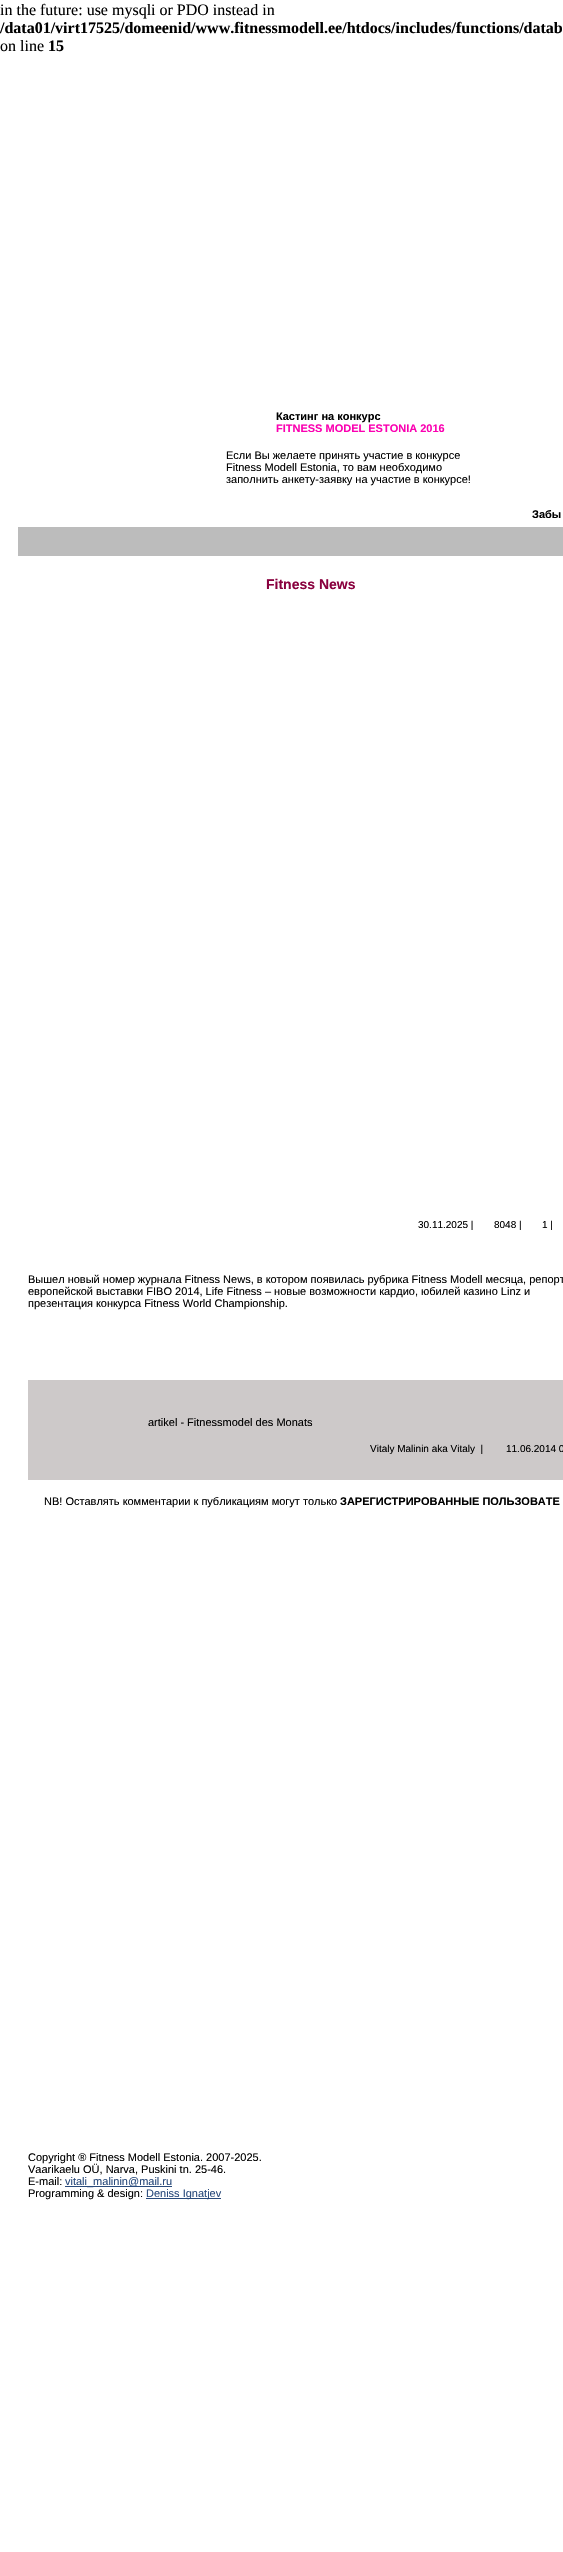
static SkFont makeFont(const char* family, int weight, float size, bool italic = false) {
  SkFontStyle style(weight, SkFontStyle::kNormal_Width,
    italic ? SkFontStyle::kItalic_Slant : SkFontStyle::kUpright_Slant);
  SkFont result(fontMgr->matchFamilyStyle(family, style), size);
  result.setSubpixel(true);
  return result;
}

static void text(SkCanvas* c, const char* s, float x, float y, const SkFont& font, SkColor color) {
  SkPaint ink(SkColor4f::FromColor(color));
  ink.setAntiAlias(true);
  c->drawString(s, x, y, font, ink);
}

static void box(SkCanvas* c, float l, float t, float r, float b, SkColor color) {
  SkPaint ink(SkColor4f::FromColor(color));
  ink.setAntiAlias(true);
  c->drawRect(SkRect::MakeLTRB(l, t, r, b), ink);
}

void draw(SkCanvas* c) {
  SkPaint paint;
  paint.setAntiAlias(true);
  c->clear(0xffffffff);
  SkFont face1 = makeFont("Liberation Serif", 400, 16);
  text(c, "in the future: use mysqli or PDO instead in", 0, 15, face1, 0xff000000);
  SkFont face2 = makeFont("Liberation Serif", 700, 16);
  text(c, "/data01/virt17525/domeenid/www.fitnessmodell.ee/htdocs/includes/functions/datab", 0, 33, face2, 0xff000000);
  text(c, "on line", 0, 51, face1, 0xff000000);
  text(c, "15", 48, 51, face2, 0xff000000);
  SkFont face3 = makeFont("Liberation Sans", 700, 11);
  text(c, "Кастинг на конкурс", 276, 420, face3, 0xff000000);
  text(c, "FITNESS MODEL ESTONIA 2016", 276, 432, face3, 0xfffb00b1);
  SkFont face4 = makeFont("Liberation Sans", 400, 11);
  text(c, "Если Вы желаете принять участие в конкурсе", 226, 459, face4, 0xff000000);
  text(c, "Fitness Modell Estonia, то вам необходимо", 226, 471, face4, 0xff000000);
  text(c, "заполнить анкету-заявку на участие в конкурсе!", 226, 483, face4, 0xff000000);
  text(c, "Забы", 532, 518, face3, 0xff000000);
  box(c, 18, 527, 563, 556, 0xffbcbcbc);
  SkFont face5 = makeFont("Liberation Sans", 700, 14);
  text(c, "Fitness News", 266, 589, face5, 0xff89003e);
  SkFont face6 = makeFont("Liberation Sans", 400, 10);
  text(c, "30.11.2025 |", 418, 1228, face6, 0xff000000);
  text(c, "8048 |", 494, 1228, face6, 0xff000000);
  text(c, "1 |", 542, 1228, face6, 0xff000000);
  text(c, "Вышел новый номер журнала Fitness News, в котором появилась рубрика Fitness Modell месяца, репорт", 28, 1283, face4, 0xff000000);
  text(c, "европейской выставки FIBO 2014, Life Fitness – новые возможности кардио, юбилей казино Linz и", 28, 1295, face4, 0xff000000);
  text(c, "презентация конкурса Fitness World Championship.", 28, 1307, face4, 0xff000000);
  box(c, 28, 1380, 563, 1480, 0xffcdc9c9);
  text(c, "artikel - Fitnessmodel des Monats", 148, 1426, face4, 0xff000000);
  text(c, "Vitaly Malinin aka Vitaly  |", 370, 1452, face6, 0xff000000);
  text(c, "11.06.2014 0", 506, 1452, face6, 0xff000000);
  text(c, "NB! Оставлять комментарии к публикациям могут только", 44, 1505, face4, 0xff000000);
  text(c, "ЗАРЕГИСТРИРОВАННЫЕ ПОЛЬЗОВАТЕ", 340, 1505, face3, 0xff000000);
  text(c, "Copyright ® Fitness Modell Estonia. 2007-2025.", 28, 2161, face4, 0xff000000);
  text(c, "Vaarikaelu OÜ, Narva, Puskini tn. 25-46.", 28, 2173, face4, 0xff000000);
  text(c, "E-mail:", 28, 2185, face4, 0xff000000);
  box(c, 65, 2186, 172, 2187, 0xff294a7b);
  text(c, "vitali_malinin@mail.ru", 65, 2185, face4, 0xff294a7b);
  text(c, "Programming & design:", 28, 2197, face4, 0xff000000);
  box(c, 146, 2198, 221, 2199, 0xff294a7b);
  text(c, "Deniss Ignatjev", 146, 2197, face4, 0xff294a7b);
}
